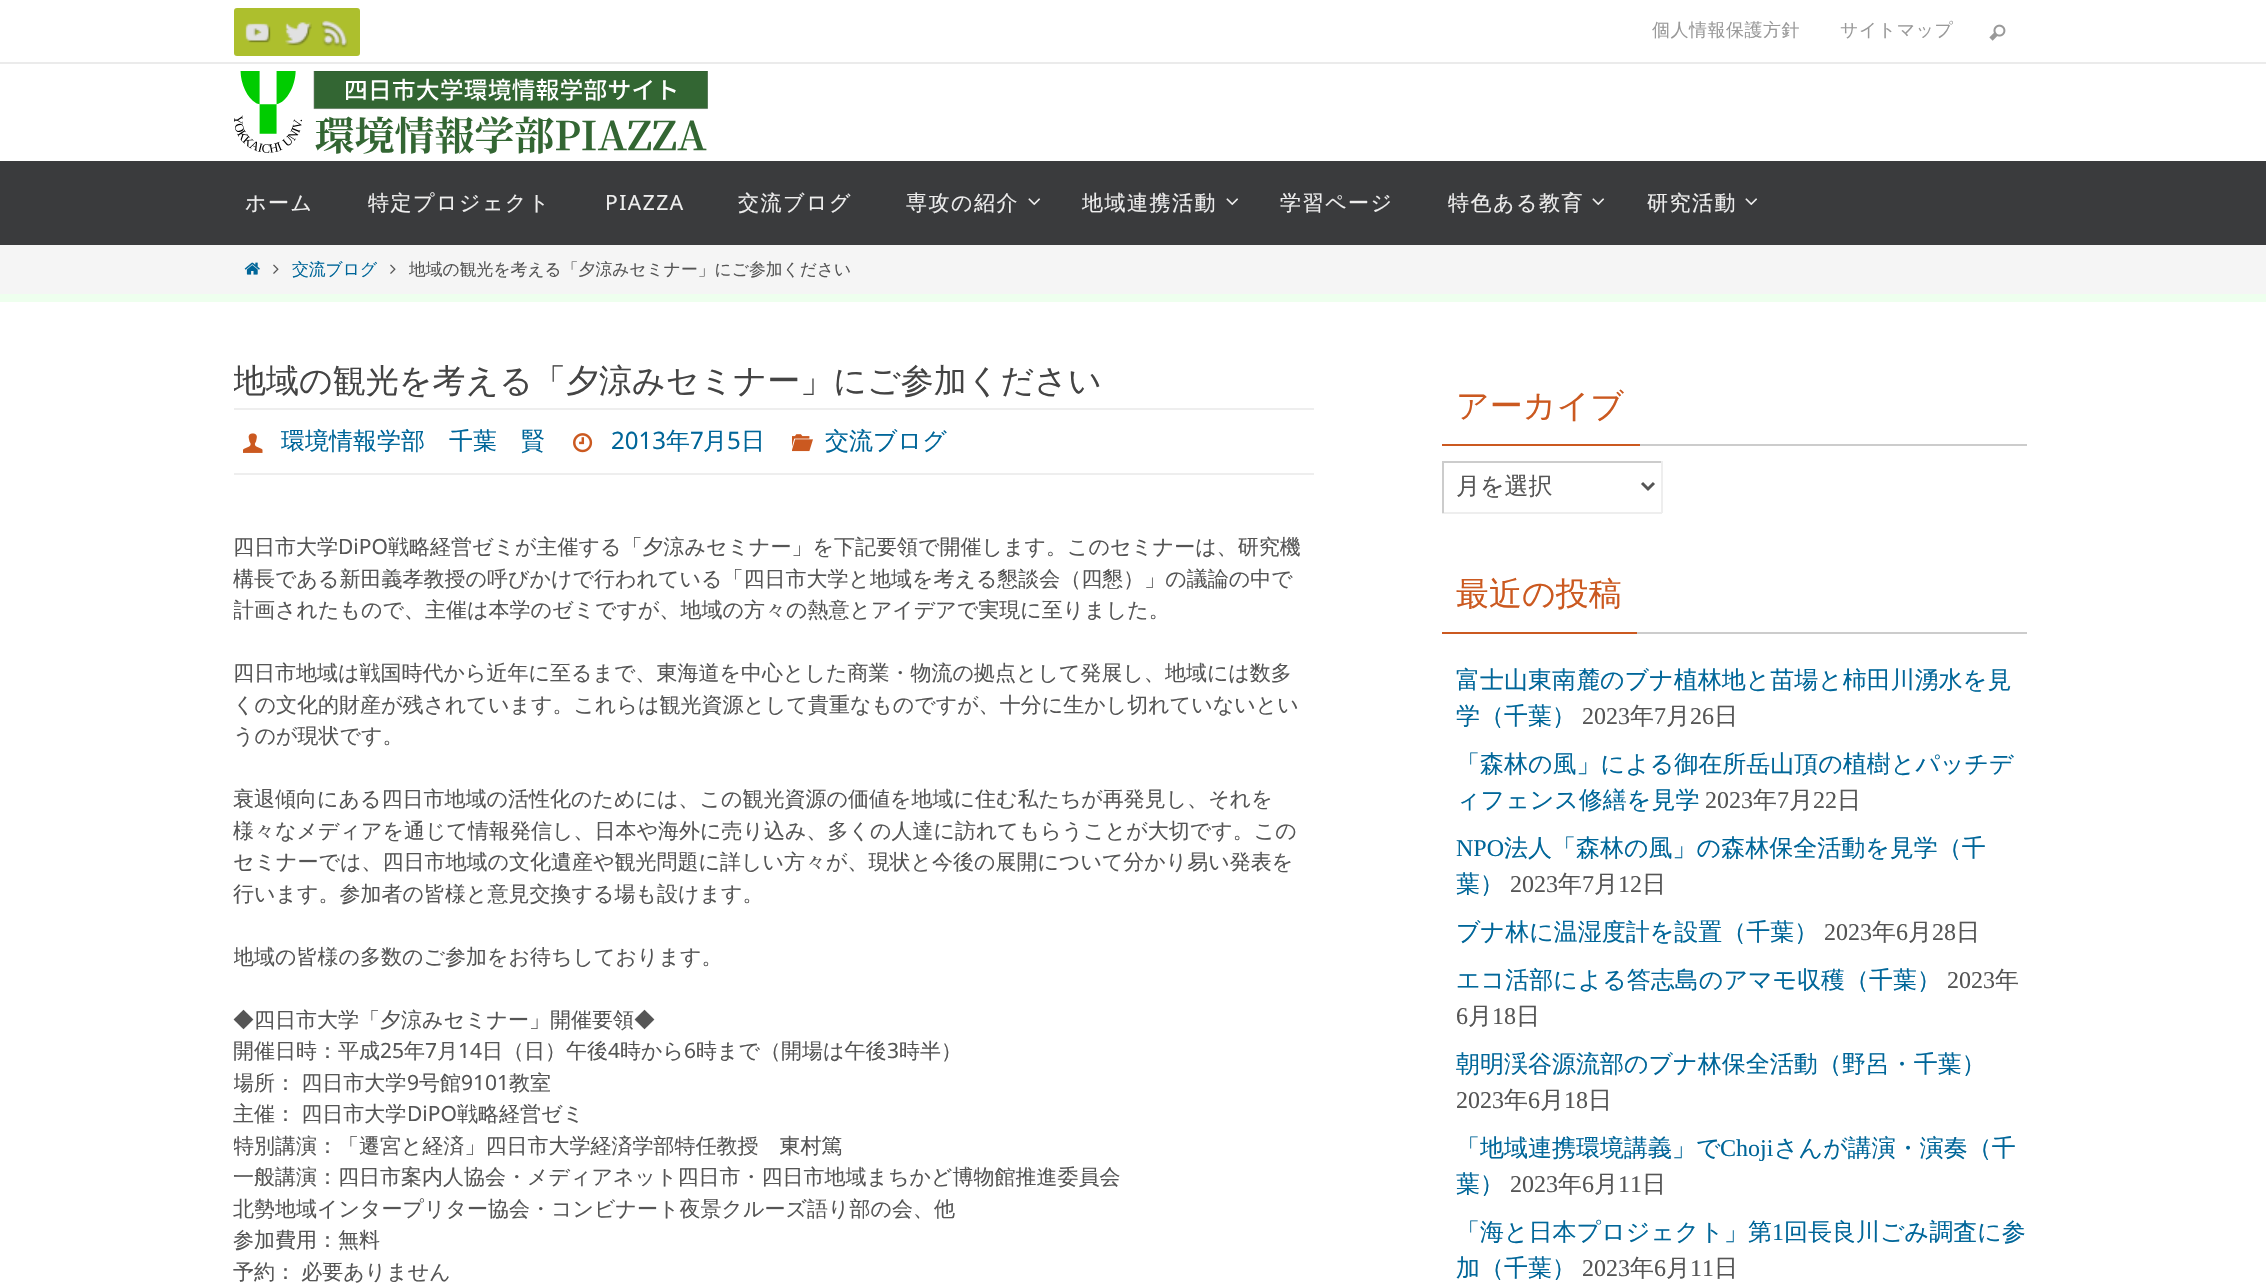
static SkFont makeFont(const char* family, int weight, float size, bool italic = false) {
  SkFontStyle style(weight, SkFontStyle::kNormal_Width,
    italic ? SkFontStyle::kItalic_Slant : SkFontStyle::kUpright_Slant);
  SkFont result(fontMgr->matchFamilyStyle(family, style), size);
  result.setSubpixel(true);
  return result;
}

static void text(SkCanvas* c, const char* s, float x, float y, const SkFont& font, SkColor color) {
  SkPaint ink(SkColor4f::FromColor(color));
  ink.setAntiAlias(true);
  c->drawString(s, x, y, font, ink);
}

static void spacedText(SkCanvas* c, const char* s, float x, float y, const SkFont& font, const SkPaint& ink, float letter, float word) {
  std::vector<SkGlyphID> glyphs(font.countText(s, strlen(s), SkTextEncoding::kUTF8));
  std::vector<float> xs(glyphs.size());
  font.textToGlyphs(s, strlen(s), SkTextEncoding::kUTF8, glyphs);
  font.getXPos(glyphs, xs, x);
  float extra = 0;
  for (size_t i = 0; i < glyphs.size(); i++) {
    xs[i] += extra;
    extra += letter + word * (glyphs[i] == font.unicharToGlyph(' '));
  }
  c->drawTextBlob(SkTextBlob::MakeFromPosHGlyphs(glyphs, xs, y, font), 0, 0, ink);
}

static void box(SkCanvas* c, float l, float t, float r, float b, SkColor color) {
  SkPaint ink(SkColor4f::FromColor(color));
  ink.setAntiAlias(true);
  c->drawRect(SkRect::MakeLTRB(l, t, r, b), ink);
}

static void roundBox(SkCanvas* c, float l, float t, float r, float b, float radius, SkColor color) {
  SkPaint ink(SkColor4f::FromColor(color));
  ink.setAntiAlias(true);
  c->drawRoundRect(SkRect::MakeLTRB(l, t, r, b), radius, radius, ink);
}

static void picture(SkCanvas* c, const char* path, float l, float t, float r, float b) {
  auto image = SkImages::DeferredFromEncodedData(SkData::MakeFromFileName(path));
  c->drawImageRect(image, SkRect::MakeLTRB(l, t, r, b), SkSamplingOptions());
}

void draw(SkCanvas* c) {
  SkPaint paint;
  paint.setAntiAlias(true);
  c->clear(0xffeeffee);
  box(c, 0, 0, 2266, 62, 0xffffffff);
  box(c, 0, 62, 2266, 64, 0xffebebeb);
  roundBox(c, 234, 8, 282, 56, 3, 0xffadbf2d);
  picture(c, "img_01.png", 245, 23, 271, 43);
  roundBox(c, 273, 8, 321, 56, 3, 0xffadbf2d);
  picture(c, "img_02.png", 285, 22, 312, 46);
  roundBox(c, 312, 8, 360, 56, 3, 0xffadbf2d);
  picture(c, "img_03.png", 321, 20, 348, 48);
  SkFont face1 = makeFont("WenQuanYi Zen Hei", 500, 18);
  paint.setColor(0xff999999);
  spacedText(c, "個人情報保護方針", 1652, 36, face1, paint, 0.5f, 0);
  spacedText(c, "サイトマップ", 1840, 36, face1, paint, 0.5f, 0);
  picture(c, "img_04.png", 1989, 24, 2006, 41);
  box(c, 0, 64, 2266, 161, 0xffffffff);
  picture(c, "img_05.png", 234, 71, 708, 154);
  box(c, 0, 161, 2266, 245, 0xff3a3b3d);
  SkFont face2 = makeFont("WenQuanYi Zen Hei", 500, 21);
  paint.setColor(0xffeeeeee);
  spacedText(c, "ホーム", 245, 210, face2, paint, 1.5f, 0);
  spacedText(c, "特定プロジェクト", 368, 210, face2, paint, 1.5f, 0);
  SkFont face3 = makeFont("Noto Sans", 400, 21);
  spacedText(c, "PIAZZA", 605, 210, face3, paint, 1.5f, 0);
  spacedText(c, "交流ブログ", 738, 210, face2, paint, 1.5f, 0);
  spacedText(c, "専攻の紹介", 906, 210, face2, paint, 1.5f, 0);
  picture(c, "img_06.png", 1028, 198, 1041, 206);
  spacedText(c, "地域連携活動", 1082, 210, face2, paint, 1.5f, 0);
  picture(c, "img_06.png", 1226, 198, 1239, 206);
  spacedText(c, "学習ページ", 1280, 210, face2, paint, 1.5f, 0);
  spacedText(c, "特色ある教育", 1448, 210, face2, paint, 1.5f, 0);
  picture(c, "img_06.png", 1592, 198, 1605, 206);
  spacedText(c, "研究活動", 1647, 210, face2, paint, 1.5f, 0);
  picture(c, "img_06.png", 1745, 198, 1758, 206);
  box(c, 0, 245, 2266, 294, 0xfff5f5f5);
  picture(c, "img_07.png", 244, 262, 260, 275);
  picture(c, "img_08.png", 273, 264, 279, 274);
  SkFont face4 = makeFont("WenQuanYi Zen Hei", 500, 16.8f);
  text(c, "交流ブログ", 292, 275, face4, 0xff006699);
  picture(c, "img_08.png", 390, 264, 396, 274);
  text(c, "地域の観光を考える「夕涼みセミナー」にご参加ください", 409, 275, face4, 0xff555555);
  box(c, 0, 302, 2266, 1284, 0xffffffff);
  c->save();
  c->clipRect(SkRect::MakeLTRB(234, 362, 1314, 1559));
  SkFont face5 = makeFont("WenQuanYi Zen Hei", 500, 33);
  text(c, "地域の観光を考える「夕涼みセミナー」にご参加ください", 233, 392, face5, 0xff444444);
  c->restore();
  box(c, 234, 408, 1314, 410, 0xffeeeeee);
  box(c, 234, 473, 1314, 475, 0xffeeeeee);
  picture(c, "img_09.png", 243, 433, 263, 453);
  SkFont face6 = makeFont("WenQuanYi Zen Hei", 500, 24);
  text(c, "環境情報学部　千葉　賢", 281, 449, face6, 0xff006699);
  picture(c, "img_10.png", 573, 433, 593, 453);
  SkFont face7 = makeFont("Noto Sans", 400, 24);
  text(c, "2013", 611, 449, face7, 0xff006699);
  text(c, "年", 666, 449, face6, 0xff006699);
  text(c, "7", 690, 449, face7, 0xff006699);
  text(c, "月", 703, 449, face6, 0xff006699);
  text(c, "5", 727, 449, face7, 0xff006699);
  text(c, "日", 741, 449, face6, 0xff006699);
  picture(c, "img_11.png", 792, 434, 813, 452);
  text(c, "交流ブログ", 825, 449, face6, 0xff006699);
  text(c, "四日市大学", 233, 554, face2, 0xff555555);
  text(c, "DiPO", 338, 554, face3, 0xff555555);
  text(c, "戦略経営ゼミが主催する「夕涼みセミナー」を下記要領で開催します。このセミナーは、研究機", 388, 554, face2, 0xff555555);
  text(c, "構長である新田義孝教授の呼びかけで行われている「四日市大学と地域を考える懇談会（四懇）」の議論の中で", 233, 586, face2, 0xff555555);
  c->save();
  c->clipRect(SkRect::MakeLTRB(234, 362, 1314, 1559));
  text(c, "計画されたもので、主催は本学のゼミですが、地域の方々の熱意とアイデアで実現に至りました。", 233, 617, face2, 0xff555555);
  c->restore();
  text(c, "四日市地域は戦国時代から近年に至るまで、東海道を中心とした商業・物流の拠点として発展し、地域には数多", 233, 680, face2, 0xff555555);
  text(c, "くの文化的財産が残されています。これらは観光資源として貴重なものですが、十分に生かし切れていないとい", 233, 712, face2, 0xff555555);
  text(c, "うのが現状です。", 233, 743, face2, 0xff555555);
  text(c, "衰退傾向にある四日市地域の活性化のためには、この観光資源の価値を地域に住む私たちが再発見し、それを", 233, 806, face2, 0xff555555);
  text(c, "様々なメディアを通じて情報発信し、日本や海外に売り込み、多くの人達に訪れてもらうことが大切です。この", 233, 838, face2, 0xff555555);
  text(c, "セミナーでは、四日市地域の文化遺産や観光問題に詳しい方々が、現状と今後の展開について分かり易い発表を", 233, 869, face2, 0xff555555);
  text(c, "行います。参加者の皆様と意見交換する場も設けます。", 233, 901, face2, 0xff555555);
  c->save();
  c->clipRect(SkRect::MakeLTRB(234, 362, 1314, 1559));
  text(c, "地域の皆様の多数のご参加をお待ちしております。", 233, 964, face2, 0xff555555);
  c->restore();
  text(c, "◆四日市大学「夕涼みセミナー」開催要領◆", 233, 1027, face2, 0xff555555);
  text(c, "開催日時：平成", 233, 1058, face2, 0xff555555);
  text(c, "25", 380, 1058, face3, 0xff555555);
  text(c, "年", 404, 1058, face2, 0xff555555);
  text(c, "7", 425, 1058, face3, 0xff555555);
  text(c, "月", 437, 1058, face2, 0xff555555);
  text(c, "14", 458, 1058, face3, 0xff555555);
  text(c, "日（日）午後", 482, 1058, face2, 0xff555555);
  text(c, "4", 608, 1058, face3, 0xff555555);
  text(c, "時から", 620, 1058, face2, 0xff555555);
  text(c, "6", 684, 1058, face3, 0xff555555);
  text(c, "時まで（開場は午後", 696, 1058, face2, 0xff555555);
  text(c, "3", 887, 1058, face3, 0xff555555);
  text(c, "時半）", 899, 1058, face2, 0xff555555);
  c->save();
  c->clipRect(SkRect::MakeLTRB(234, 362, 1314, 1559));
  paint.setColor(0xff555555);
  spacedText(c, "場所： 四日市大学", 233, 1090, face2, paint, 0, -1);
  c->restore();
  text(c, "9", 407, 1090, face3, 0xff555555);
  text(c, "号館", 419, 1090, face2, 0xff555555);
  text(c, "9101", 461, 1090, face3, 0xff555555);
  text(c, "教室", 509, 1090, face2, 0xff555555);
  spacedText(c, "主催： 四日市大学", 233, 1121, face2, paint, 0, -1);
  text(c, "DiPO", 407, 1121, face3, 0xff555555);
  text(c, "戦略経営ゼミ", 457, 1121, face2, 0xff555555);
  c->save();
  c->clipRect(SkRect::MakeLTRB(234, 362, 1314, 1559));
  text(c, "特別講演：「遷宮と経済」四日市大学経済学部特任教授　東村篤", 233, 1153, face2, 0xff555555);
  c->restore();
  text(c, "一般講演：四日市案内人協会・メディアネット四日市・四日市地域まちかど博物館推進委員会", 233, 1184, face2, 0xff555555);
  text(c, "北勢地域インタープリター協会・コンビナート夜景クルーズ語り部の会、他", 233, 1216, face2, 0xff555555);
  text(c, "参加費用：無料", 233, 1247, face2, 0xff555555);
  spacedText(c, "予約： 必要ありません", 233, 1279, face2, paint, 0, -1);
  box(c, 1640, 444, 2027, 446, 0xffcccccc);
  box(c, 1442, 444, 1640, 446, 0xffcb5920);
  text(c, "アーカイブ", 1456, 417, face5, 0xffcb5920);
  box(c, 1442, 461, 1662, 463, 0xffcccccc);
  box(c, 1661, 461, 1663, 513, 0xffeeeeee);
  box(c, 1442, 512, 1662, 514, 0xffeeeeee);
  box(c, 1442, 461, 1444, 513, 0xffcccccc);
  paint.setStyle(SkPaint::kStroke_Style);
  paint.setStrokeWidth(3);
  c->drawPath(SkPathBuilder().moveTo(1642, 483).lineTo(1648, 489).lineTo(1654, 483).detach(), paint);
  text(c, "月を選択", 1456, 494, face6, 0xff555555);
  box(c, 1637, 632, 2027, 634, 0xffcccccc);
  box(c, 1442, 632, 1637, 634, 0xffcb5920);
  text(c, "最近の投稿", 1456, 605, face5, 0xffcb5920);
  text(c, "富士山東南麓のブナ植林地と苗場と柿田川湧水を見", 1456, 688, face6, 0xff006699);
  text(c, "学（千葉）", 1456, 724, face6, 0xff006699);
  SkFont face8 = makeFont("Liberation Serif", 400, 24);
  text(c, "2023", 1582, 724, face8, 0xff555555);
  text(c, "年", 1630, 724, face6, 0xff555555);
  text(c, "7", 1654, 724, face8, 0xff555555);
  text(c, "月", 1666, 724, face6, 0xff555555);
  text(c, "26", 1690, 724, face8, 0xff555555);
  text(c, "日", 1714, 724, face6, 0xff555555);
  text(c, "「森林の風」による御在所岳山頂の植樹とパッチデ", 1456, 772, face6, 0xff006699);
  text(c, "ィフェンス修繕を見学", 1456, 808, face6, 0xff006699);
  text(c, "2023", 1705, 808, face8, 0xff555555);
  text(c, "年", 1753, 808, face6, 0xff555555);
  text(c, "7", 1777, 808, face8, 0xff555555);
  text(c, "月", 1789, 808, face6, 0xff555555);
  text(c, "22", 1813, 808, face8, 0xff555555);
  text(c, "日", 1837, 808, face6, 0xff555555);
  text(c, "NPO", 1456, 856, face8, 0xff006699);
  text(c, "法人「森林の風」の森林保全活動を見学（千", 1504, 856, face6, 0xff006699);
  text(c, "葉）", 1456, 892, face6, 0xff006699);
  text(c, "2023", 1510, 892, face8, 0xff555555);
  text(c, "年", 1558, 892, face6, 0xff555555);
  text(c, "7", 1582, 892, face8, 0xff555555);
  text(c, "月", 1594, 892, face6, 0xff555555);
  text(c, "12", 1618, 892, face8, 0xff555555);
  text(c, "日", 1642, 892, face6, 0xff555555);
  text(c, "ブナ林に温湿度計を設置（千葉）", 1456, 940, face6, 0xff006699);
  text(c, "2023", 1824, 940, face8, 0xff555555);
  text(c, "年", 1872, 940, face6, 0xff555555);
  text(c, "6", 1896, 940, face8, 0xff555555);
  text(c, "月", 1908, 940, face6, 0xff555555);
  text(c, "28", 1932, 940, face8, 0xff555555);
  text(c, "日", 1956, 940, face6, 0xff555555);
  text(c, "エコ活部による答志島のアマモ収穫（千葉）", 1456, 988, face6, 0xff006699);
  text(c, "2023", 1947, 988, face8, 0xff555555);
  text(c, "年", 1995, 988, face6, 0xff555555);
  text(c, "6", 1456, 1024, face8, 0xff555555);
  text(c, "月", 1468, 1024, face6, 0xff555555);
  text(c, "18", 1492, 1024, face8, 0xff555555);
  text(c, "日", 1516, 1024, face6, 0xff555555);
  text(c, "朝明渓谷源流部のブナ林保全活動（野呂・千葉）", 1456, 1072, face6, 0xff006699);
  text(c, "2023", 1456, 1108, face8, 0xff555555);
  text(c, "年", 1504, 1108, face6, 0xff555555);
  text(c, "6", 1528, 1108, face8, 0xff555555);
  text(c, "月", 1540, 1108, face6, 0xff555555);
  text(c, "18", 1564, 1108, face8, 0xff555555);
  text(c, "日", 1588, 1108, face6, 0xff555555);
  text(c, "「地域連携環境講義」で", 1456, 1156, face6, 0xff006699);
  text(c, "Choji", 1720, 1156, face8, 0xff006699);
  text(c, "さんが講演・演奏（千", 1774, 1156, face6, 0xff006699);
  text(c, "葉）", 1456, 1192, face6, 0xff006699);
  text(c, "2023", 1510, 1192, face8, 0xff555555);
  text(c, "年", 1558, 1192, face6, 0xff555555);
  text(c, "6", 1582, 1192, face8, 0xff555555);
  text(c, "月", 1594, 1192, face6, 0xff555555);
  text(c, "11", 1618, 1192, face8, 0xff555555);
  text(c, "日", 1642, 1192, face6, 0xff555555);
  text(c, "「海と日本プロジェクト」第", 1456, 1240, face6, 0xff006699);
  text(c, "1", 1772, 1240, face8, 0xff006699);
  text(c, "回長良川ごみ調査に参", 1784, 1240, face6, 0xff006699);
  text(c, "加（千葉）", 1456, 1276, face6, 0xff006699);
  text(c, "2023", 1582, 1276, face8, 0xff555555);
  text(c, "年", 1630, 1276, face6, 0xff555555);
  text(c, "6", 1654, 1276, face8, 0xff555555);
  text(c, "月", 1666, 1276, face6, 0xff555555);
  text(c, "11", 1690, 1276, face8, 0xff555555);
  text(c, "日", 1714, 1276, face6, 0xff555555);
}
